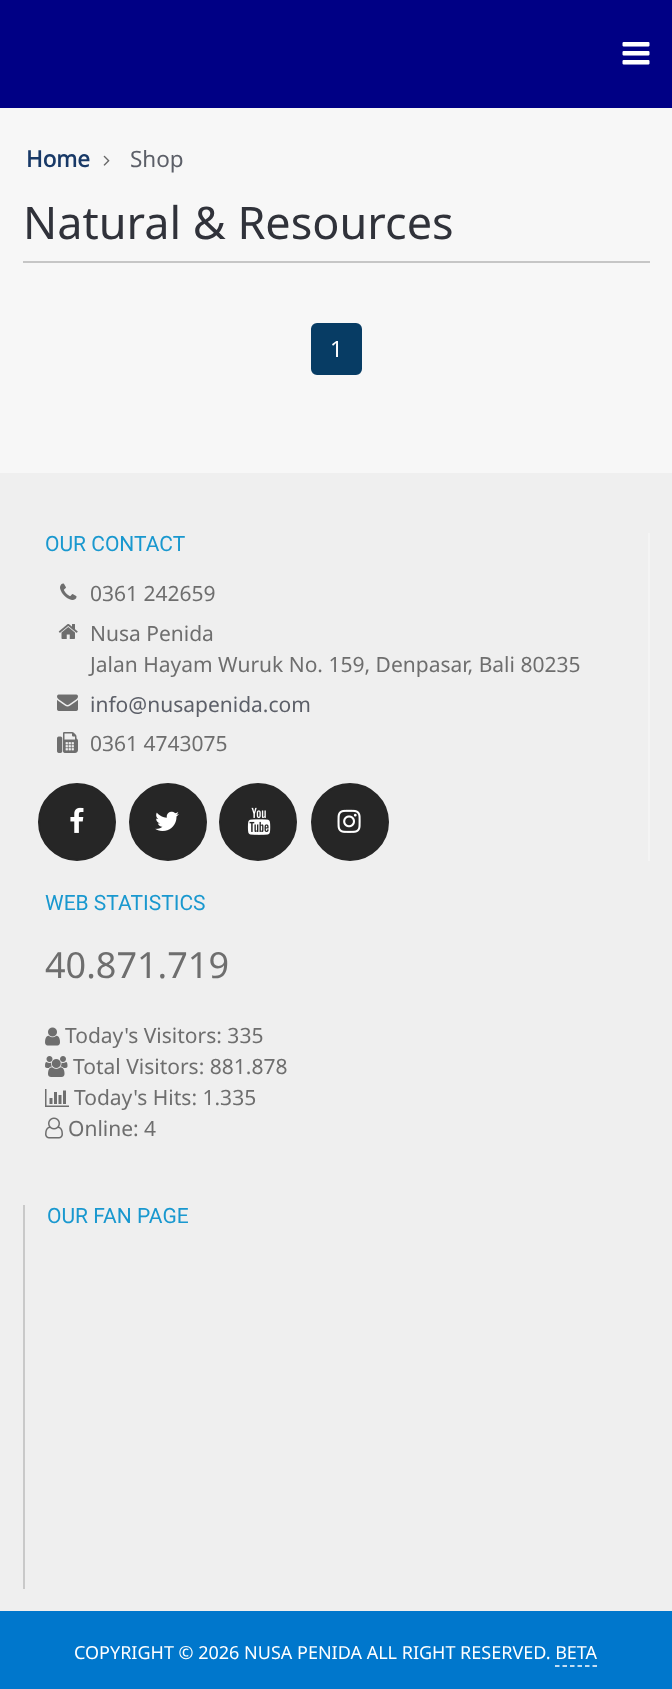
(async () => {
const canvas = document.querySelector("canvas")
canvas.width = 672
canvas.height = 1689
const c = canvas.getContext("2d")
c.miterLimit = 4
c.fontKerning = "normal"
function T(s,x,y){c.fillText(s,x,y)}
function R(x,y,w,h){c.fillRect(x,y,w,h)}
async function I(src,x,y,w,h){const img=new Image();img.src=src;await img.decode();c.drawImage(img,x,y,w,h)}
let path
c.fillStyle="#f7f7f7"
R(0,0,672,1689)
c.fillStyle="#000085"
R(0,0,672,108)
await I("1.png",622,42,28,23)
c.fillStyle="#c6c6c6"
R(23,261,627,2)
c.font="bold 22.5px Noto Sans"
c.fillStyle="#183967"
T("Home",26,167)
await I("2.png",103,155,7,11)
c.font="22.5px Noto Sans"
c.fillStyle="#5c5f68"
T("Shop",130,167)
c.font="45px Noto Sans"
c.fillStyle="#30323a"
T("Natural & Resources",23,239)
c.fillStyle="#073c64"
c.beginPath()
c.roundRect(312,324,49,50,5)
c.fill()
c.strokeStyle="#073c64"
c.lineWidth=2
c.stroke()
c.font="22.5px Noto Sans"
c.fillStyle="#fff"
T("1",330,357)
c.fillStyle="#efefef"
R(0,473,672,1138)
c.fillStyle="#f4f4f4"
R(648,533,2,328)
c.font="21px Roboto"
c.fillStyle="#1998cf"
T("OUR CONTACT",45,551)
await I("3.png",60,583,17,17)
c.font="21px Noto Sans"
c.fillStyle="#6e6e6e"
T("0361 242659",90,601)
await I("4.png",58,624,20,15)
T("Nusa Penida",90,641)
T("Jalan Hayam Wuruk No. 159, Denpasar, Bali 80235",90,672)
await I("5.png",57,694,21,17)
c.fillStyle="#5c5f68"
T("info@nusapenida.com",90,712)
await I("6.png",57,732,21,21)
c.fillStyle="#6e6e6e"
T("0361 4743075",90,751)
c.fillStyle="#262626"
c.beginPath()
c.arc(77,822,38,0,7)
c.fill()
c.strokeStyle="#262626"
c.stroke()
await I("7.png",70,807,14,26)
c.beginPath()
c.arc(168,822,38,0,7)
c.fill()
c.stroke()
await I("8.png",155,811,24,20)
c.beginPath()
c.arc(258,822,38,0,7)
c.fill()
c.stroke()
await I("9.png",247,807,24,28)
c.beginPath()
c.arc(350,822,38,0,7)
c.fill()
c.stroke()
await I("10.png",337,809,24,24)
c.font="21px Roboto"
c.fillStyle="#1998cf"
T("WEB STATISTICS",45,910)
c.font="36px Noto Sans"
c.fillStyle="#6e6e6e"
T("40.871.719",45,978)
await I("11.png",45,1027,15,19)
c.font="21px Noto Sans"
T("Today's Visitors: 335",65,1043)
await I("12.png",45,1056,23,21)
T("Total Visitors: 881.878",73,1074)
await I("13.png",45,1089,24,18)
T("Today's Hits: 1.335",74,1105)
await I("14.png",45,1117,18,22)
T("Online: 4",68,1136)
c.fillStyle="#c9c9c9"
R(23,1205,2,384)
c.font="21px Roboto"
c.fillStyle="#1998cf"
T("OUR FAN PAGE",47,1223)
c.fillStyle="#07c"
R(0,1611,672,78)
c.font="18px Noto Sans"
c.fillStyle="#fff"
T("COPYRIGHT © 2026 NUSA PENIDA ALL RIGHT RESERVED. BETA",74,1659)
path = new Path2D("M555 1666h42")
c.strokeStyle="#fff"
c.lineWidth=1.5
c.setLineDash([4.5,3])
c.stroke(path)
})()
